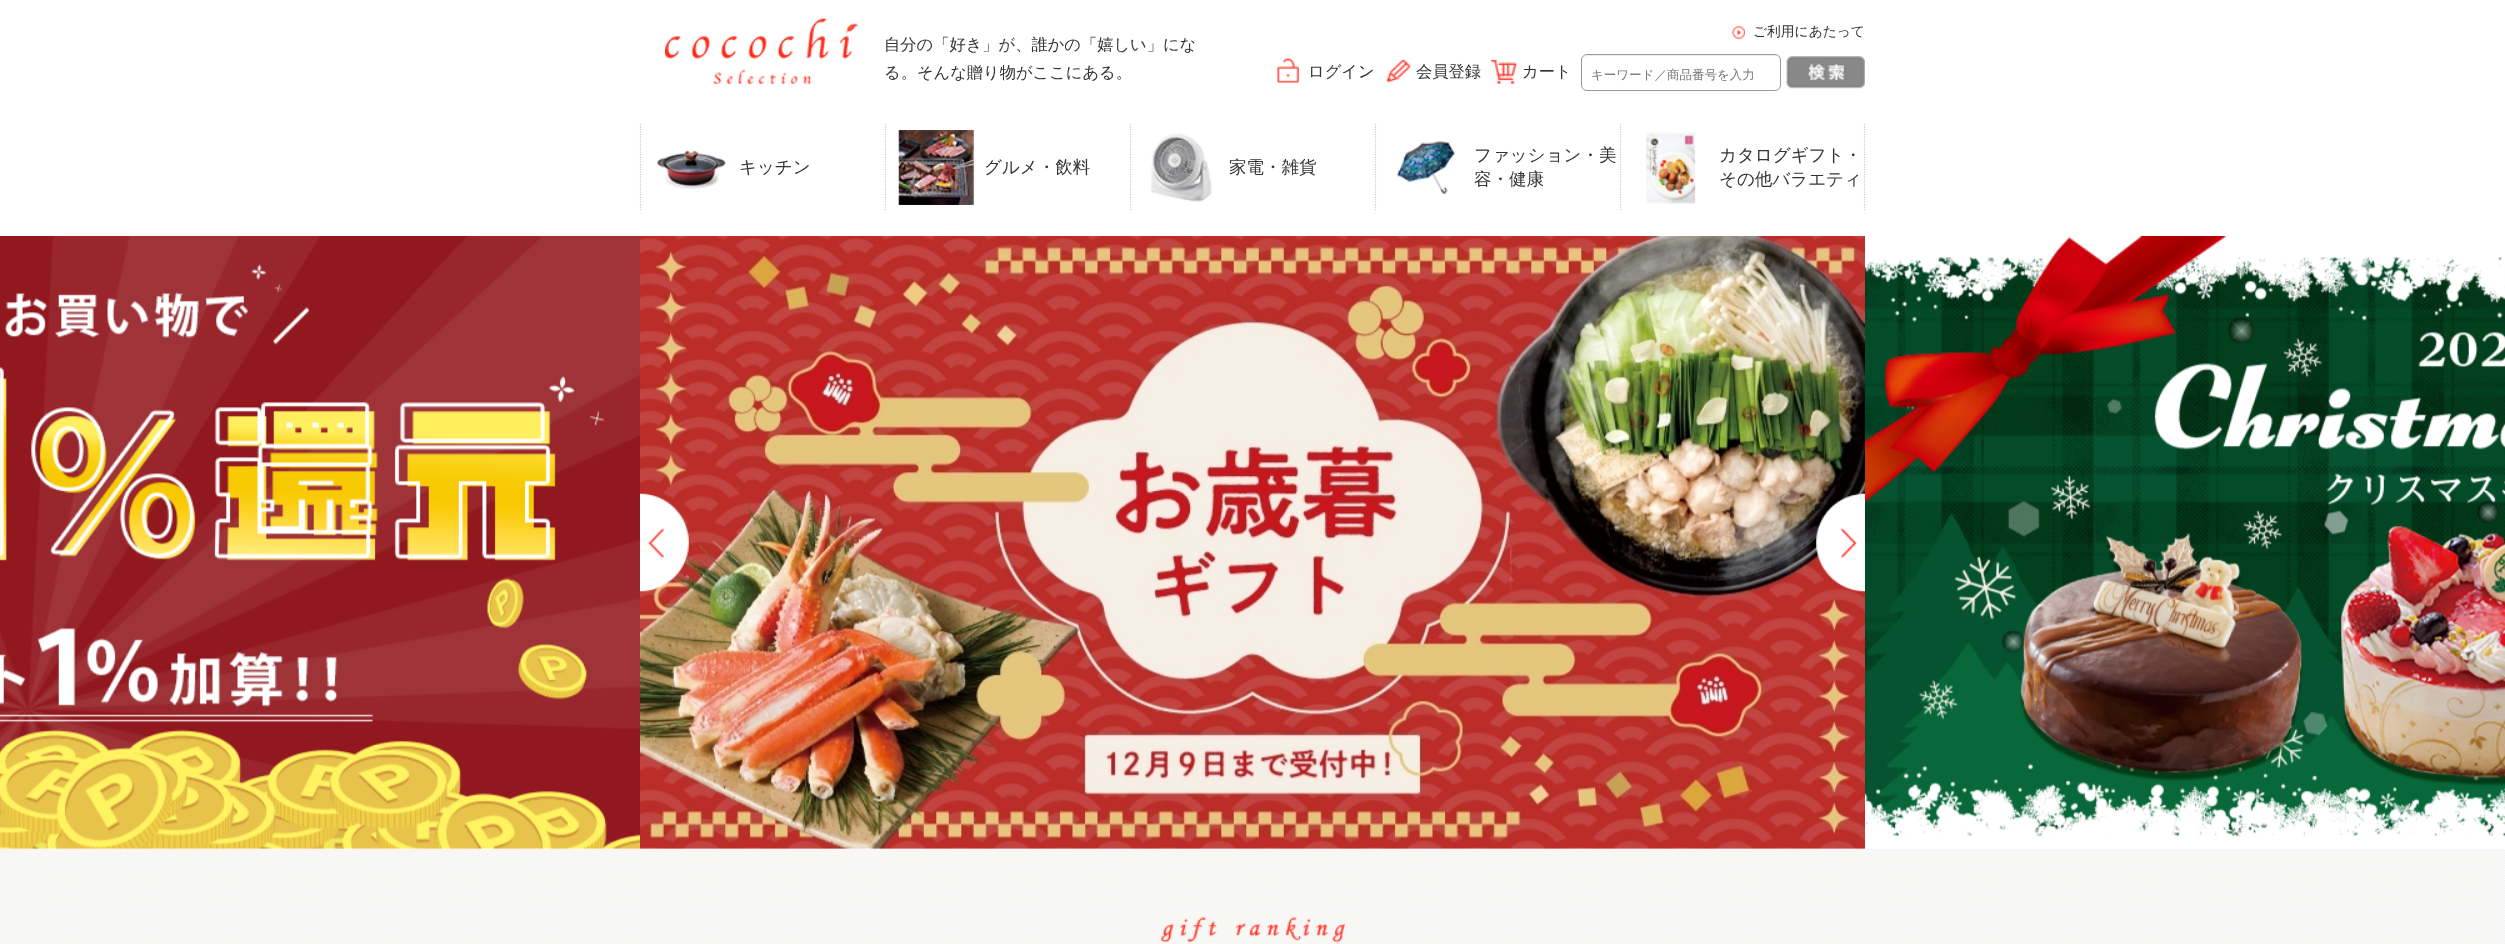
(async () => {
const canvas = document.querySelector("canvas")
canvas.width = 2505
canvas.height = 944
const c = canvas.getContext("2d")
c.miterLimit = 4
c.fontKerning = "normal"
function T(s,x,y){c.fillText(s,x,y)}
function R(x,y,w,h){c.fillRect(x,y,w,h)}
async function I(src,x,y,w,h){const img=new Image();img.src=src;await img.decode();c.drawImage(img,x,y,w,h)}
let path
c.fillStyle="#fff"
R(0,0,2505,944)
await I("1.png",665,18,194,66)
c.font="500 16.25px WenQuanYi Zen Hei"
c.fillStyle="#333"
T("自分の「好き」が、誰かの「嬉しい」にな",884,50)
T("る。そんな贈り物がここにある。",884,78)
await I("2.png",1732,26,13,13)
c.font="500 13.75px WenQuanYi Zen Hei"
T("ご利用にあたって",1753,36)
await I("3.png",1277,58,22,25)
c.font="500 16.25px WenQuanYi Zen Hei"
T("ログイン",1308,77)
await I("4.png",1386,59,25,24)
T("会員登録",1416,77)
await I("5.png",1491,59,26,25)
T("カート",1522,77)
c.fillStyle="#ececec"
path = new Path2D("M1588 56h187c3 0 5 2 5 5v-1c0-3-2-5-5-5h-187c-2 0-4 1-4 3c1-1 2-2 4-2z")
c.fill(path)
c.beginPath()
c.roundRect(1581.5,54.5,199,36,5.5)
c.strokeStyle="#999"
c.stroke()
c.font="500 12.5px WenQuanYi Zen Hei"
c.fillStyle="#757575"
T("キーワード／商品番号を入力",1591,79)
await I("6.png",1786,56,79,33)
path = new Path2D("M640.5 124v87")
c.strokeStyle="#ccc"
c.lineWidth=1.2
c.setLineDash([1.25,1.25])
c.stroke(path)
await I("7.png",656,150,70,39)
c.font="500 17.5px WenQuanYi Zen Hei"
c.fillStyle="#333"
T("キッチン",739,173)
path = new Path2D("M885.5 124v87")
c.stroke(path)
await I("8.png",898,130,76,75)
T("グルメ・飲料",984,173)
path = new Path2D("M1130.5 124v87")
c.stroke(path)
await I("9.png",1151,133,61,69)
T("家電・雑貨",1229,173)
path = new Path2D("M1375.5 124v87")
c.stroke(path)
await I("10.png",1397,141,59,53)
T("ファッション・美",1474,161)
T("容・健康",1474,185)
path = new Path2D("M1864.5 124v87")
c.stroke(path)
path = new Path2D("M1620.5 124v87")
c.stroke(path)
await I("11.png",1646,132,50,72)
T("カタログギフト・",1719,161)
T("その他バラエティ",1719,185)
await I("12.png",0,236,640,613)
await I("13.png",640,236,1225,613)
await I("14.png",1865,236,640,601)
await I("15.png",640,493,49,99)
await I("16.png",1816,493,49,99)
await I("17.png",0,849,2505,95)
await I("18.png",1161,917,184,26)
})()
